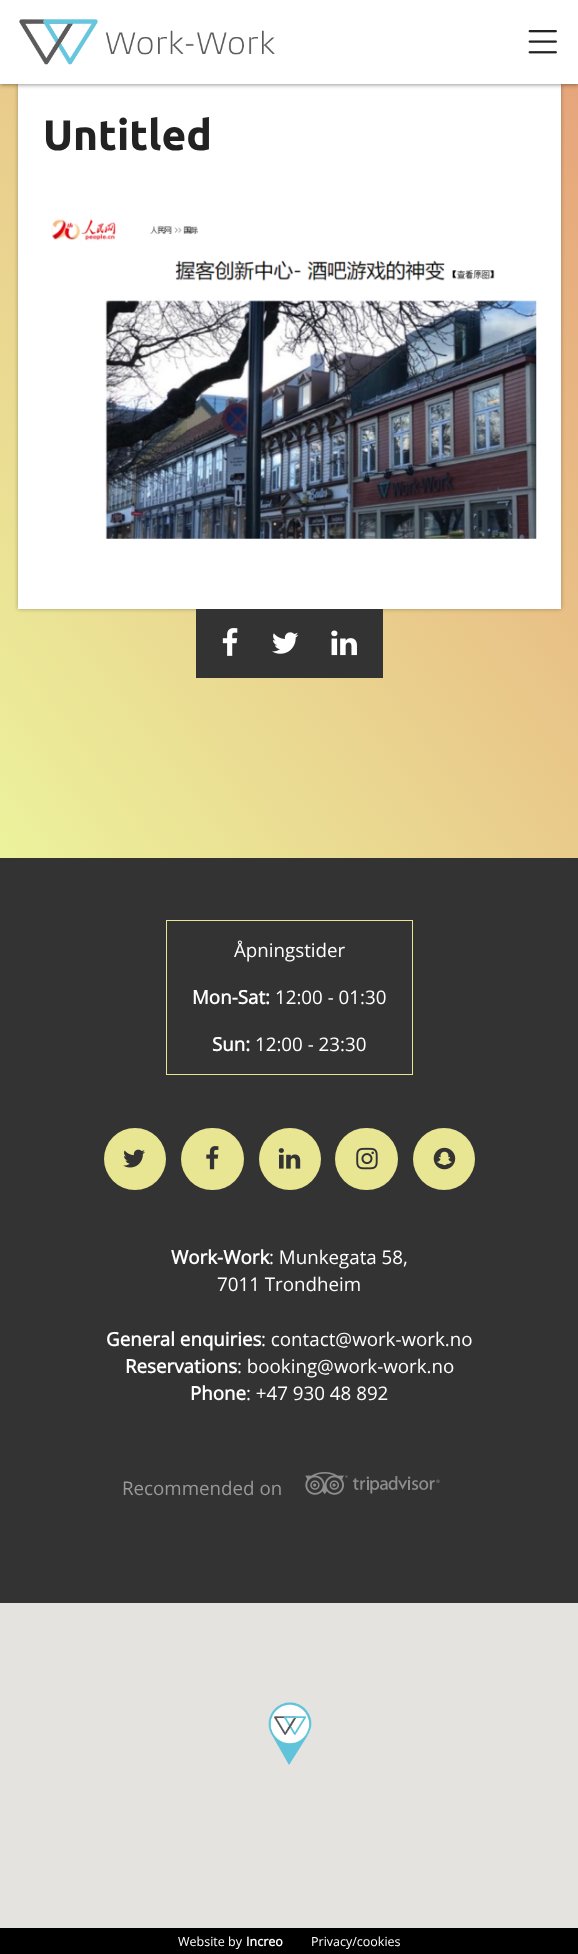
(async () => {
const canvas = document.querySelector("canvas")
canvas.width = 578
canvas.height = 1954
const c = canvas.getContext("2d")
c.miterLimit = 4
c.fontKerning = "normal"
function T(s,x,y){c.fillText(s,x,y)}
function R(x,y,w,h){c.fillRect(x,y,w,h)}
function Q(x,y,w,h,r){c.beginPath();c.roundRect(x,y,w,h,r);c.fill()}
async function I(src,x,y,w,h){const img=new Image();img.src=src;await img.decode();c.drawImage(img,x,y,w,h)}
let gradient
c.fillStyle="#fff"
R(0,0,578,1954)
gradient = c.createLinearGradient(-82,748,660,193)
gradient.addColorStop(0,"#ecf29c")
gradient.addColorStop(1,"#e6a57b")
c.fillStyle = gradient
R(0,84,578,774)
c.fillStyle="#0000004d"
c.filter="blur(2px)"
c.beginPath()
c.rect(18,84,543,525)
c.fill()
c.filter="none"
c.fillStyle="#fff"
R(18,84,543,525)
c.fillStyle="#00000066"
c.filter="blur(2px)"
c.beginPath()
c.rect(0,1,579,84)
c.fill()
c.filter="none"
c.fillStyle="#fff"
R(0,0,578,84)
await I("1.png",19,19,256,46)
await I("2.png",528,30,29,24)
c.font="bold 42.5px Ubuntu"
c.fillStyle="#222"
T("Untitled",43,150)
await I("3.png",51,217,486,322)
c.fillStyle="#333"
R(196,609,187,69)
await I("4.png",222,628,16,28)
await I("5.png",272,632,27,22)
await I("6.png",331,630,26,26)
R(0,858,578,745)
c.strokeStyle="#e8e593"
c.strokeRect(166.5,920.5,246,154)
c.font="18.75px Open Sans"
c.fillStyle="#fff"
T("Åpningstider",234,957)
c.font="bold 18.75px Open Sans"
T("Mon-Sat:",192,1004)
c.font="18.75px Open Sans"
T("12:00 - 01:30",275,1004)
c.font="bold 18.75px Open Sans"
T("Sun:",212,1051)
c.font="18.75px Open Sans"
T("12:00 - 23:30",255,1051)
c.fillStyle="#e8e593"
c.beginPath()
c.arc(135,1159,31,0,7)
c.fill()
await I("7.png",123,1149,22,19)
Q(181,1128,63,62,31)
await I("8.png",206,1146,13,24)
c.beginPath()
c.arc(290,1159,31,0,7)
c.fill()
await I("9.png",278,1148,23,21)
Q(335,1128,63,62,31)
await I("10.png",356,1147,22,23)
c.beginPath()
c.arc(444,1159,31,0,7)
c.fill()
await I("11.png",433,1147,23,23)
c.font="bold 18.75px Open Sans"
c.fillStyle="#fff"
T("Work-Work",171,1264)
c.font="18.75px Open Sans"
T(": Munkegata 58,",269,1264)
T("7011 Trondheim",217,1291)
c.font="bold 18.75px Open Sans"
T("General enquiries",106,1346)
c.font="18.75px Open Sans"
T(": contact@work-work.no",261,1346)
c.font="bold 18.75px Open Sans"
T("Reservations",125,1373)
c.font="18.75px Open Sans"
T(": booking@work-work.no",237,1373)
c.font="bold 18.75px Open Sans"
T("Phone",190,1400)
c.font="18.75px Open Sans"
T(": +47 930 48 892",246,1400)
c.fillStyle="#999"
T("Recommended on",122,1495)
await I("12.png",305,1472,135,23)
c.fillStyle="#e5e3df"
R(0,1603,578,325)
await I("13.png",268,1702,44,63)
c.fillStyle="#000"
R(0,1928,578,26)
c.font="12.5px Open Sans"
c.fillStyle="#fff"
T("Website by",178,1946)
c.font="bold 12.5px Open Sans"
T("Increo",246,1946)
c.font="12.5px Open Sans"
T("Privacy/cookies",311,1946)
})()
